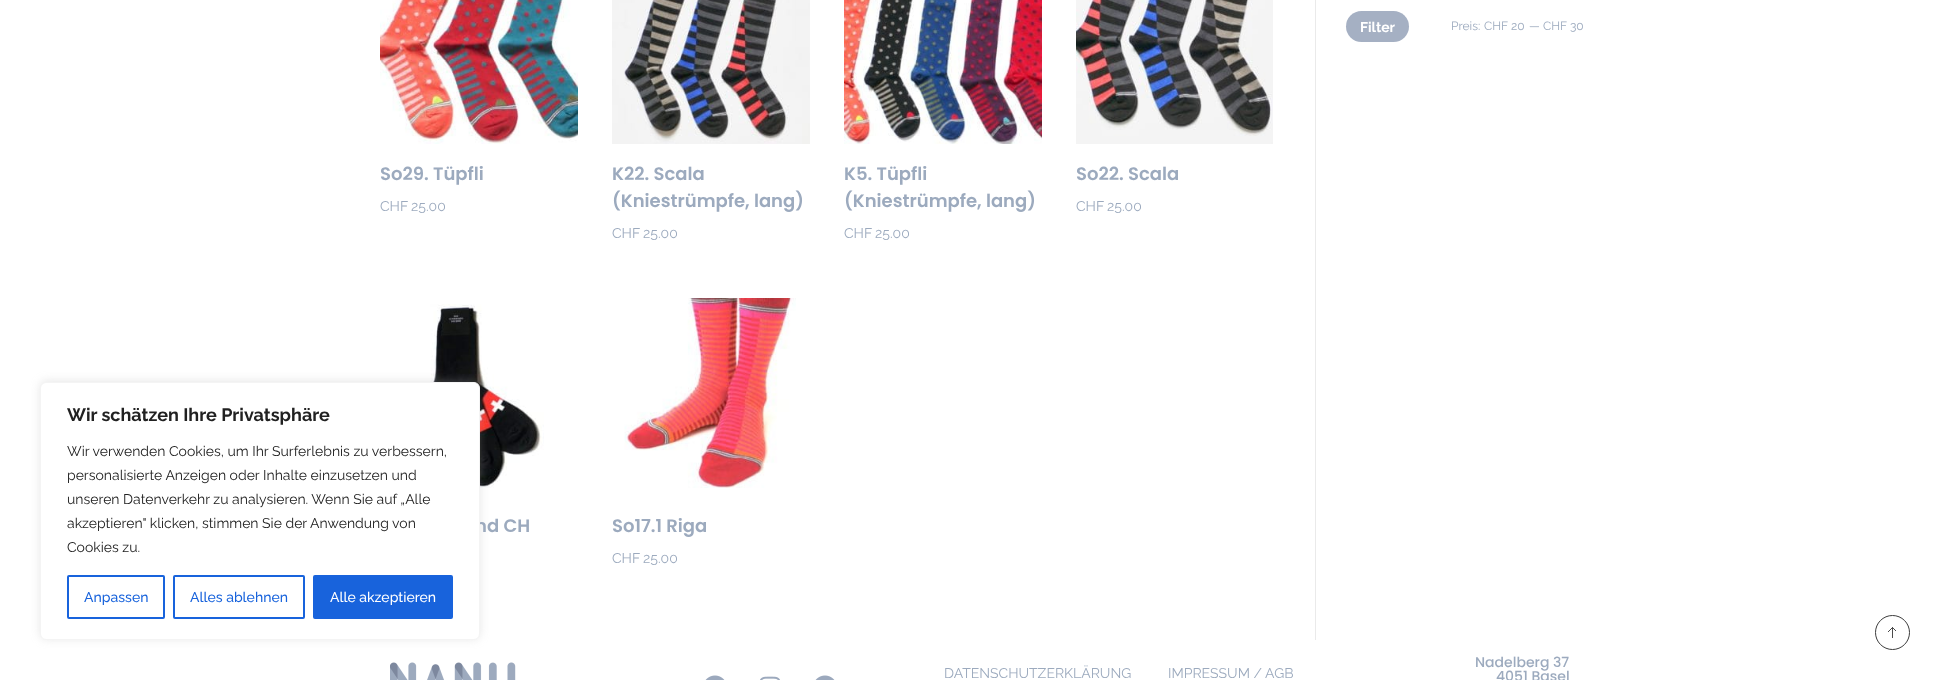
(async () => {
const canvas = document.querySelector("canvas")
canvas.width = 1960
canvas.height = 680
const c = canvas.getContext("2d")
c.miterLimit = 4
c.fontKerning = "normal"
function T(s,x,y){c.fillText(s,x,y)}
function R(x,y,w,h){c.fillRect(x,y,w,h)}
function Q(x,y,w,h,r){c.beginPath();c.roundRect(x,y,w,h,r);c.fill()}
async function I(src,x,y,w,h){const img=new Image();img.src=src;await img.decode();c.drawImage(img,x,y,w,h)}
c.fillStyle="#fff"
R(0,0,1960,680)
await I("5.png",420,304,124,184)
c.fillStyle="#acabab4d"
c.filter="blur(5px)"
c.beginPath()
c.roundRect(40,381,440,258,6)
c.fill()
c.filter="none"
c.font="600 18px Poppins"
c.fillStyle="#9caabe"
T("nd CH",475,532)
c.fillStyle="#fff"
c.beginPath()
c.roundRect(40.5,382.5,439,257,5.5)
c.fill()
c.strokeStyle="#f4f4f4"
c.stroke()
c.font="bold 18px Raleway"
c.fillStyle="#212121"
T("Wir schätzen Ihre Privatsphäre",67,421)
c.font="14px Raleway"
T("Wir verwenden Cookies, um Ihr Surferlebnis zu verbessern,",67,456)
T("personalisierte Anzeigen oder Inhalte einzusetzen und",67,480)
T("unseren Datenverkehr zu analysieren. Wenn Sie auf „Alle",67,504)
T("akzeptieren\" klicken, stimmen Sie der Anwendung von",67,528)
T("Cookies zu.",67,552)
c.beginPath()
c.roundRect(68,576,96,42,1)
c.strokeStyle="#1863dc"
c.lineWidth=2
c.stroke()
c.font="500 14px Raleway"
c.fillStyle="#1863dc"
T("Anpassen",84,602)
c.beginPath()
c.roundRect(174,576,130,42,1)
c.stroke()
T("Alles ablehnen",190,602)
c.beginPath()
c.roundRect(314,576,138,42,1)
c.fill()
c.stroke()
c.fillStyle="#fff"
T("Alle akzeptieren",330,602)
c.fillStyle="#eaeaea"
R(1315,0,1,640)
c.fillStyle="#a5b0c3"
Q(1346,11,63,31,15.5)
c.font="bold 14px Raleway"
c.fillStyle="#fff"
T("Filter",1360,32)
c.font="12px Raleway"
c.fillStyle="#9caabe"
T("Preis:",1451,30)
T("CHF 20",1484,30)
T("—",1529,30)
T("CHF 30",1543,30)
await I("1.png",380,0,198,144)
c.font="600 18px Poppins"
T("So29. Tüpfli",380,180)
c.font="14px Raleway"
T("CHF",380,211)
T("25.00",411,211)
await I("2.png",612,0,198,144)
c.font="600 18px Poppins"
T("K22. Scala",612,180)
T("(Kniestrümpfe, lang)",612,207)
c.font="14px Raleway"
T("CHF",612,238)
T("25.00",643,238)
await I("3.png",844,0,198,144)
c.font="600 18px Poppins"
T("K5. Tüpfli",844,180)
T("(Kniestrümpfe, lang)",844,207)
c.font="14px Raleway"
T("CHF",844,238)
T("25.00",875,238)
await I("4.png",1076,0,197,144)
c.font="600 18px Poppins"
T("So22. Scala",1076,180)
c.font="14px Raleway"
T("CHF",1076,211)
T("25.00",1107,211)
await I("6.png",624,298,172,190)
c.font="600 18px Poppins"
T("So17.1 Riga",612,532)
c.font="14px Raleway"
T("CHF",612,563)
T("25.00",643,563)
await I("7.png",390,662,126,18)
await I("8.png",705,675,20,5)
await I("9.png",760,676,20,4)
await I("8.png",815,675,20,5)
T("DATENSCHUTZERKLÄRUNG",944,678)
T("IMPRESSUM / AGB",1168,678)
c.font="500 14px Poppins"
T("Nadelberg 37",1475,667)
T("4051 Basel",1496,681)
c.beginPath()
c.arc(1892.5,632.5,17,0,7)
c.strokeStyle="#3d3d3d"
c.lineWidth=1
c.stroke()
await I("10.png",1888,627,8,11)
})()
